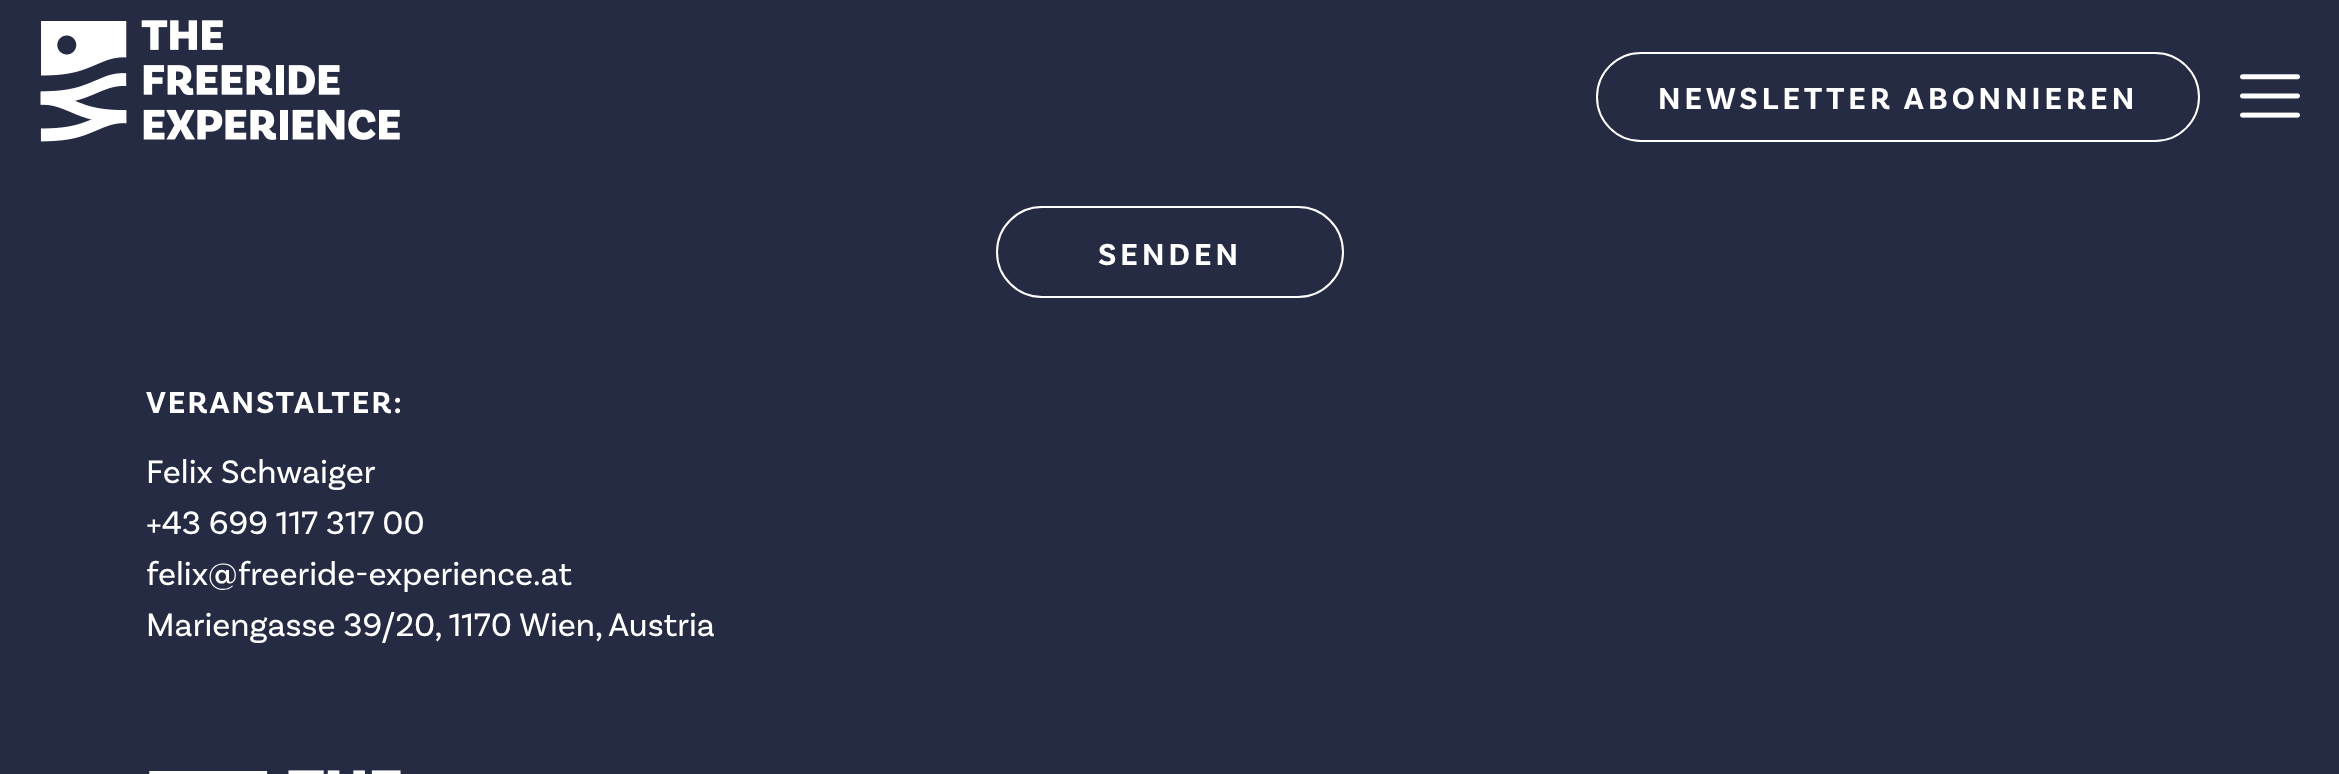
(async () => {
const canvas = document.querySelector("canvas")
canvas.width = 2339
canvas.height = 774
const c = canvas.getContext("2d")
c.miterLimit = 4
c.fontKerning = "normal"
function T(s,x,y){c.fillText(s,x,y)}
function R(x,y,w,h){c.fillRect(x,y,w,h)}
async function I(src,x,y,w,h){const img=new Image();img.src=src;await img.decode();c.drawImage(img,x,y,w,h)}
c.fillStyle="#262b44"
R(0,0,2339,774)
await I("1.png",40,20,360,122)
c.beginPath()
c.roundRect(1597,53,602,88,44)
c.strokeStyle="#fff"
c.lineWidth=2
c.stroke()
c.letterSpacing="4px"
c.font="bold 32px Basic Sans"
c.fillStyle="#fff"
T("NEWSLETTER ABONNIEREN",1658,109)
await I("2.png",2240,74,60,44)
c.beginPath()
c.roundRect(997,207,346,90,45)
c.stroke()
T("SENDEN",1098,265)
c.letterSpacing="2px"
T("VERANSTALTER:",146,413)
c.letterSpacing="0px"
c.font="34px Basic Sans"
T("Felix Schwaiger",146,483)
T("+43 699 117 317 00",146,534)
T("felix@freeride-experience.at",146,585)
T("Mariengasse 39/20, 1170 Wien, Austria",146,636)
await I("3.png",149,770,252,4)
})()
